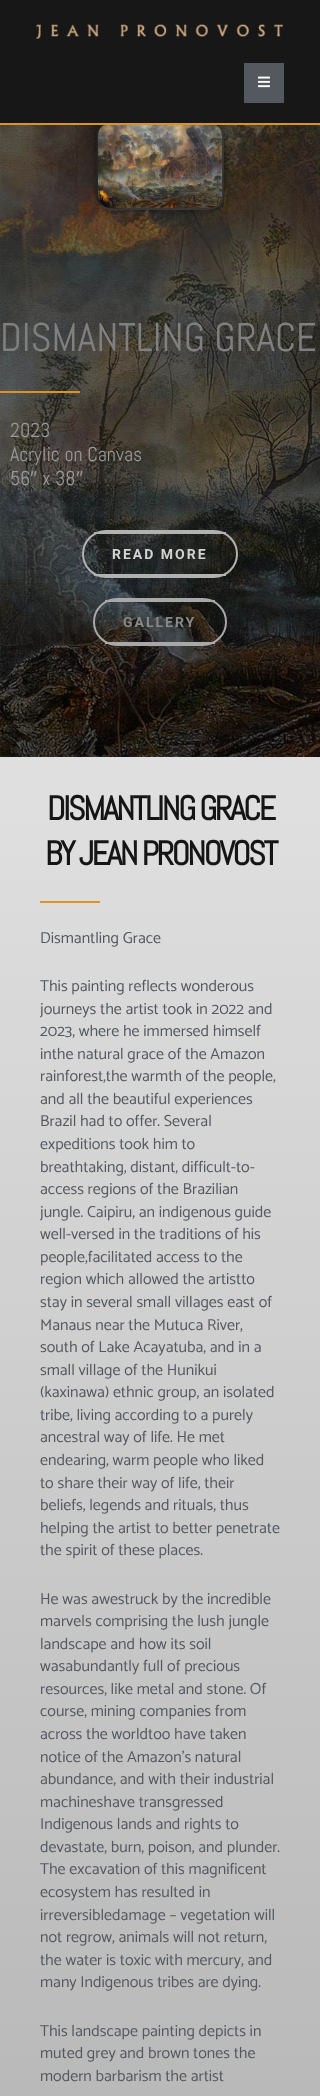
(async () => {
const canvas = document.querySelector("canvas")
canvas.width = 320
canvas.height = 2096
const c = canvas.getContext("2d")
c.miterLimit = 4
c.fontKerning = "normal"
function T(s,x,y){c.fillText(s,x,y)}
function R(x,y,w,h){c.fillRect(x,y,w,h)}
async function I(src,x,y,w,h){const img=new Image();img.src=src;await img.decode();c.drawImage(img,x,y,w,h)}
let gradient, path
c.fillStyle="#fff"
R(0,0,320,2096)
await I("3.png",0,125,320,632)
c.fillStyle="#00000080"
c.filter="blur(5px)"
c.beginPath()
c.roundRect(96,121,128,89,15)
c.fill()
c.filter="none"
path = new Path2D("M219 126c5 5.5 4 13 4 20l-.5 51.5c-2.5 14.5-19.5 11.5-30 11.5h-65c-8 0-20 2.5-26.5-4")
c.strokeStyle="#383838"
c.lineWidth=2
c.stroke(path)
path = new Path2D("M101 205c-5-5.5-4-13-4-20l.5-51.5c2.5-14.5 19.5-11.5 30-11.5h65c8 0 20-2.5 26.5 4")
c.strokeStyle="#252525"
c.stroke(path)
c.fillStyle="#171717"
R(0,0,320,123)
c.fillStyle="#db9423"
R(0,123,320,2)
await I("1.png",36,24,248,15)
c.fillStyle="#54595f"
R(244,63,40,40)
await I("2.png",258,76,12,12)
await I("4.png",98,125,124,83)
c.font="40px Abel"
c.fillStyle="#808080"
T("DISMANTLING GRACE",0,351)
c.fillStyle="#db9423"
R(0,391,80,2)
c.font="20px Abel"
c.fillStyle="#999"
T("2023",10,437)
T("Acrylic on Canvas",10,461)
T("56",10,485)
c.font="20px Liberation Sans"
T("″",30,485)
c.font="20px Abel"
T("x 38",42,485)
c.font="20px Liberation Sans"
T("″",76,485)
c.beginPath()
c.roundRect(83,531,154,46,23)
c.strokeStyle="#b2b2b2"
c.stroke()
c.fillStyle="#b2b2b2"
R(94,532,132,2)
R(94,574,132,2)
c.letterSpacing="2px"
c.font="bold 14px Roboto"
c.fillStyle="#d3d3d3"
T("READ MORE",112,559)
c.beginPath()
c.roundRect(94,599,132,46,23)
c.strokeStyle="#a8a8a8"
c.stroke()
c.fillStyle="#a8a8a8"
R(105,600,110,2)
R(105,642,110,2)
c.fillStyle="#898989"
T("GALLERY",123,627)
gradient = c.createLinearGradient(160,757,160,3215)
gradient.addColorStop(0,"#e0e0e0")
gradient.addColorStop(.6,"#b5b5b5")
c.fillStyle = gradient
R(0,757,320,1339)
c.letterSpacing="-2.5px"
c.font="bold 34px Abel"
c.fillStyle="#151515"
T("DISMANTLING GRACE",47,820)
T("BY JEAN PRONOVOST",45,865)
c.fillStyle="#db9423"
R(40,901,60,2)
c.letterSpacing="0px"
c.font="16px Catamaran"
c.fillStyle="#54595f"
T("Dismantling Grace",40,943)
T("This painting reflects wonderous",40,991)
T("journeys the artist took in 2022 and",40,1014)
T("2023, where he immersed himself",40,1036)
T("inthe natural grace of the Amazon",40,1059)
T("rainforest,the warmth of the people,",40,1081)
T("and all the beautiful experiences",40,1104)
T("Brazil had to offer. Several",40,1126)
T("expeditions took him to",40,1149)
T("breathtaking, distant, difficult-to-",40,1172)
T("access regions of the Brazilian",40,1194)
T("jungle. Caipiru, an indigenous guide",40,1217)
T("well-versed in the traditions of his",40,1239)
T("people,facilitated access to the",40,1262)
T("region which allowed the artistto",40,1284)
T("stay in several small villages east of",40,1307)
T("Manaus near the Mutuca River,",40,1330)
T("south of Lake Acayatuba, and in a",40,1352)
T("small village of the Hunikui",40,1375)
T("(kaxinawa) ethnic group, an isolated",40,1397)
T("tribe, living according to a purely",40,1420)
T("ancestral way of life. He met",40,1442)
T("endearing, warm people who liked",40,1465)
T("to share their way of life, their",40,1488)
T("beliefs, legends and rituals, thus",40,1510)
T("helping the artist to better penetrate",40,1533)
T("the spirit of these places.",40,1555)
T("He was awestruck by the incredible",40,1604)
T("marvels comprising the lush jungle",40,1626)
T("landscape and how its soil",40,1649)
T("wasabundantly full of precious",40,1671)
T("resources, like metal and stone. Of",40,1694)
T("course, mining companies from",40,1716)
T("across the worldtoo have taken",40,1739)
T("notice of the Amazon’s natural",40,1762)
T("abundance, and with their industrial",40,1784)
T("machineshave transgressed",40,1807)
T("Indigenous lands and rights to",40,1829)
T("devastate, burn, poison, and plunder.",40,1852)
T("The excavation of this magnificent",40,1874)
T("ecosystem has resulted in",40,1897)
T("irreversibledamage – vegetation will",40,1920)
T("not regrow, animals will not return,",40,1942)
T("the water is toxic with mercury, and",40,1965)
T("many Indigenous tribes are dying.",40,1987)
T("This landscape painting depicts in",40,2036)
T("muted grey and brown tones the",40,2058)
T("modern barbarism the artist",40,2081)
})()
